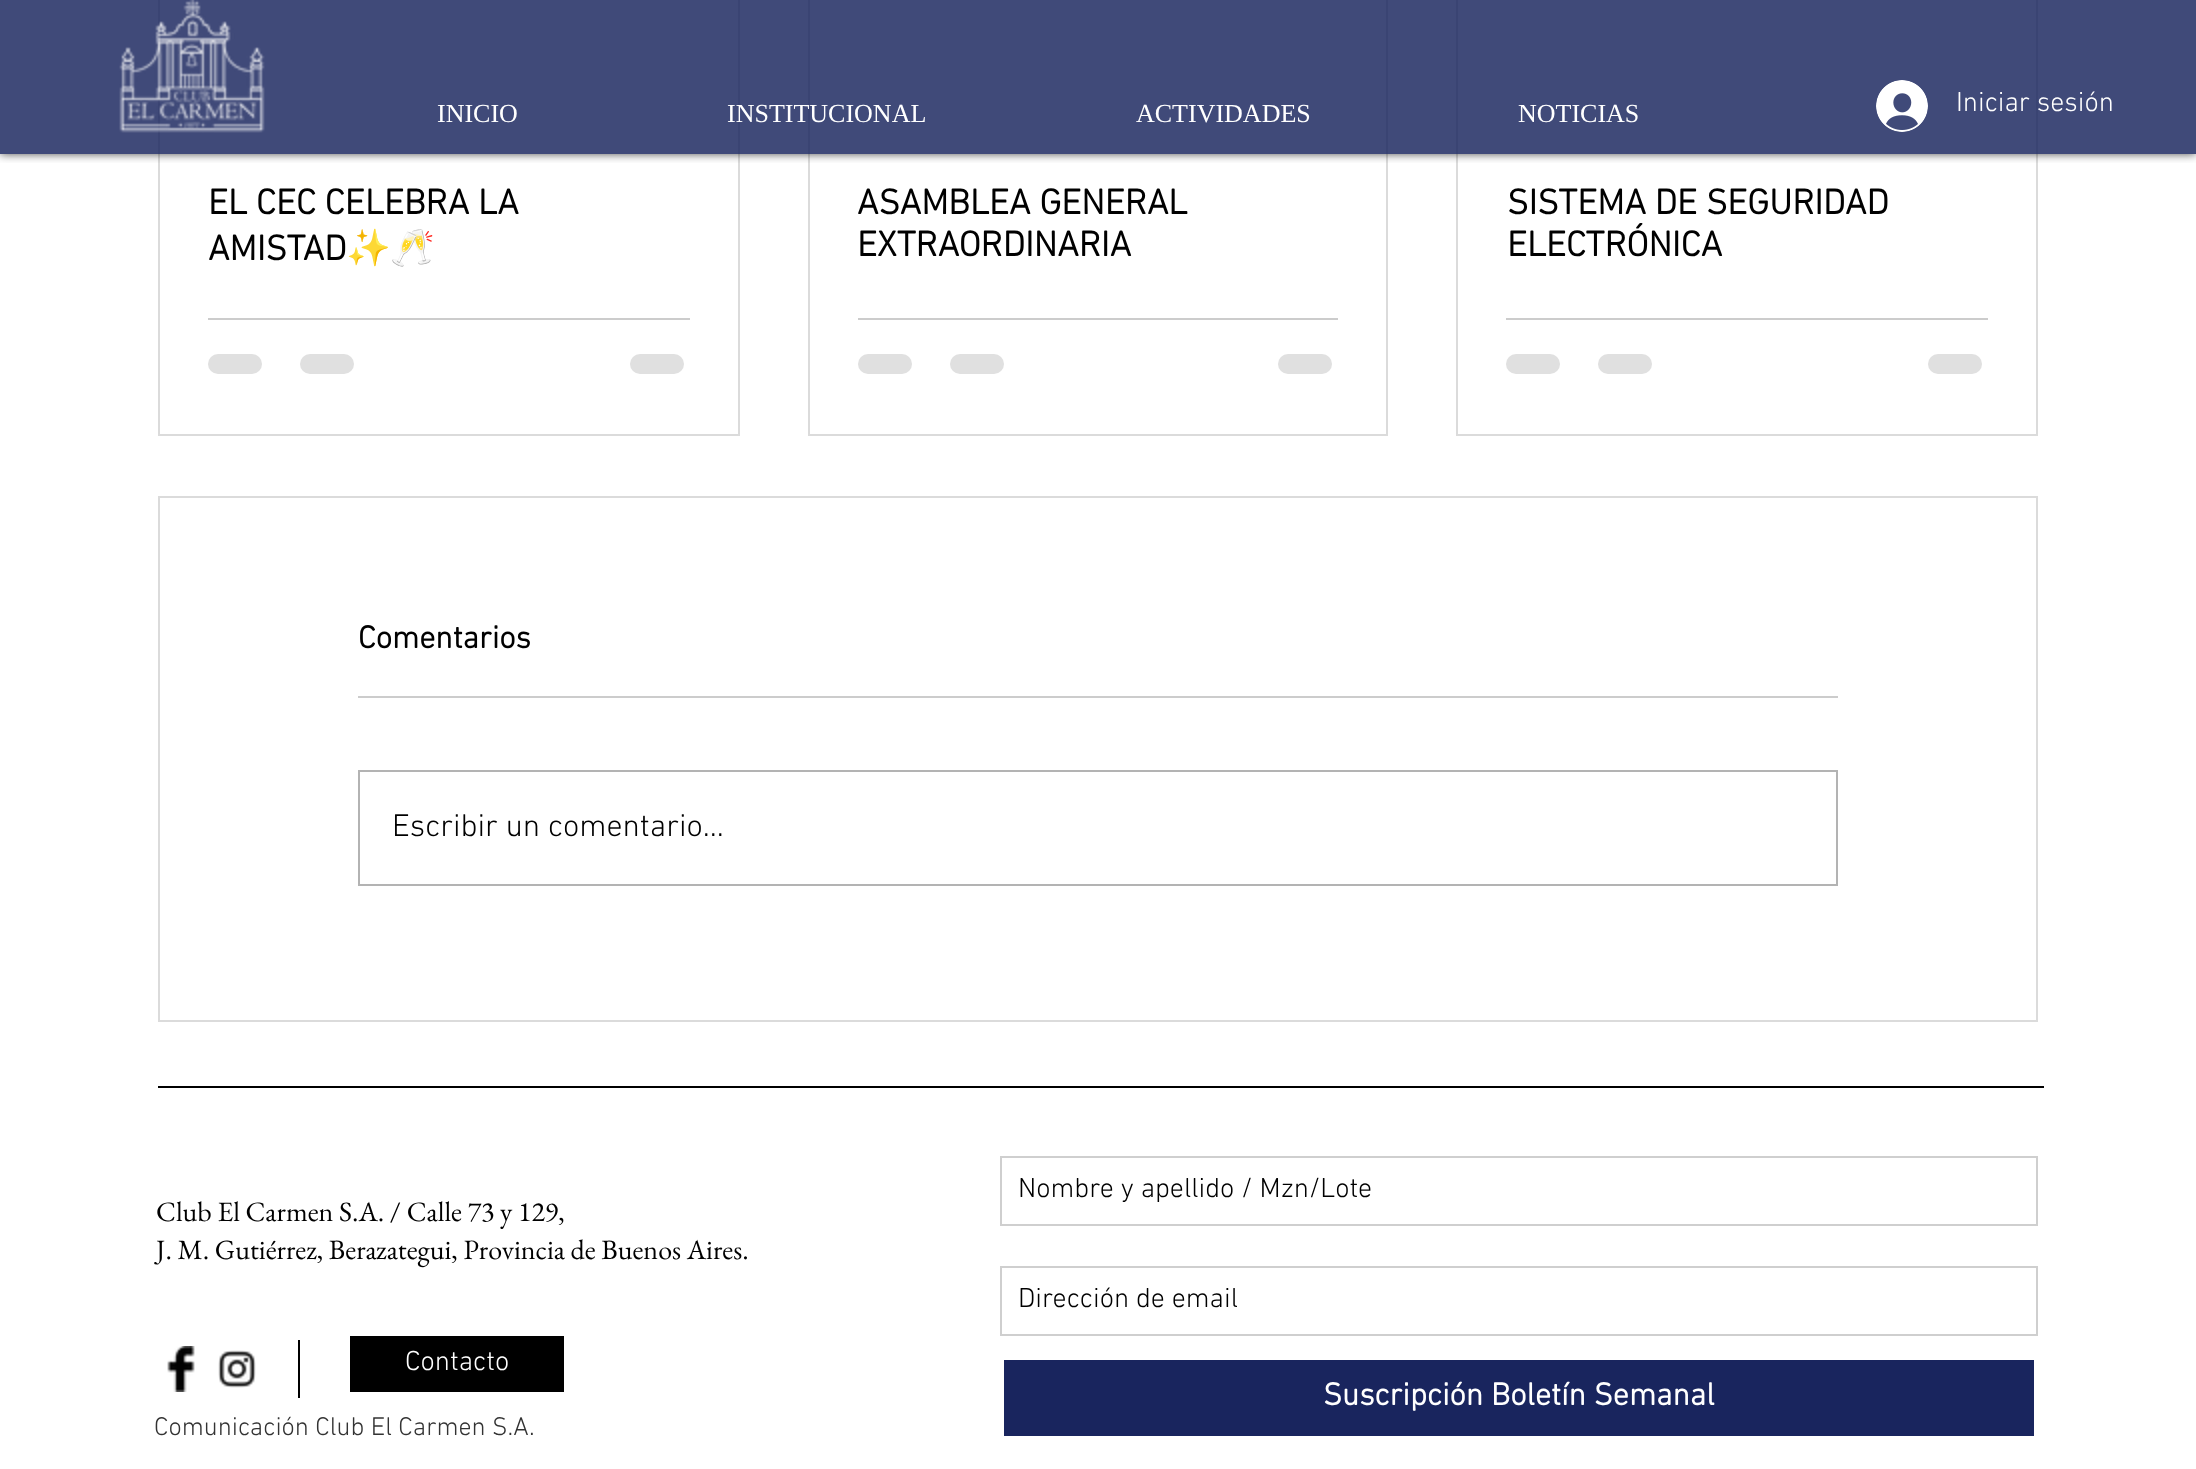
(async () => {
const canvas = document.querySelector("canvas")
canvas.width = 2196
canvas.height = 1469
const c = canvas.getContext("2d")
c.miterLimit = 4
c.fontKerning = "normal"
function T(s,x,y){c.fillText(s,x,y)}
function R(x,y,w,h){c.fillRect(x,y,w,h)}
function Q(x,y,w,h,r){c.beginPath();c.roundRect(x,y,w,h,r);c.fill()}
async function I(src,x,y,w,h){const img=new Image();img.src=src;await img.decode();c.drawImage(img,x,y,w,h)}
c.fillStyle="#fff"
R(0,0,2196,1469)
c.strokeStyle="#dbdbdb"
c.lineWidth=2
c.strokeRect(159,-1,580,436)
c.strokeRect(809,-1,578,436)
c.strokeRect(1457,-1,580,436)
c.save()
c.beginPath()
c.rect(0,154,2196,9)
c.clip()
c.fillStyle="#000000b3"
c.filter="blur(5px)"
c.beginPath()
c.rect(0,0,2196,154)
c.fill()
c.filter="none"
c.restore()
c.fillStyle="#19255ed4"
R(0,0,2196,154)
await I("1.png",119,0,146,133)
c.font="26px Liberation Serif"
c.fillStyle="#fff"
T("INICIO",437,122)
T("INSTITUCIONAL",727,122)
T("ACTIVIDADES",1136,122)
T("NOTICIAS",1518,122)
await I("2.png",1876,80,52,52)
c.font="300 28px 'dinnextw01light'"
T("Iniciar sesión",1956,111)
c.font="bold 36px 'dinnextw01light'"
c.fillStyle="#000"
T("EL CEC CELEBRA LA",208,214)
T("AMISTAD",208,260)
c.font="bold 36px Noto Color Emoji"
T("✨🥂",346,260)
c.fillStyle="#ccc"
R(208,318,482,2)
c.fillStyle="#e0e0e0"
Q(208,354,54,20,10)
Q(300,354,54,20,10)
Q(630,354,54,20,10)
c.font="bold 36px 'dinnextw01light'"
c.fillStyle="#000"
T("ASAMBLEA GENERAL",857,214)
T("EXTRAORDINARIA",857,256)
c.fillStyle="#ccc"
R(858,318,480,2)
c.fillStyle="#e0e0e0"
Q(858,354,54,20,10)
Q(950,354,54,20,10)
Q(1278,354,54,20,10)
c.fillStyle="#000"
T("SISTEMA DE SEGURIDAD",1507,214)
T("ELECTRÓNICA",1507,256)
c.fillStyle="#ccc"
R(1506,318,482,2)
c.fillStyle="#e0e0e0"
Q(1506,354,54,20,10)
Q(1598,354,54,20,10)
Q(1928,354,54,20,10)
c.strokeRect(159,497,1878,524)
c.font="bold 32px 'dinnextw01light'"
c.fillStyle="#000"
T("Comentarios",358,648)
c.fillStyle="#ccc"
R(358,696,1480,2)
c.strokeStyle="#b3b3b3"
c.strokeRect(359,771,1478,114)
c.font="300 32px 'dinnextw01light'"
c.fillStyle="#000"
T("Escribir un comentario...",392,836)
R(158,1086,1886,2)
c.font="28px EB Garamond"
T("Club El Carmen S.A. / Calle 73 y 129,",156,1221)
T("J. M. Gutiérrez, Berazategui, Provincia de Buenos Aires.",156,1259)
c.strokeStyle="#cfcfcf"
c.strokeRect(1001,1157,1036,68)
c.font="300 28px 'dinnextw01light'"
T("Nombre y apellido / Mzn/Lote",1018,1197)
c.strokeRect(1001,1267,1036,68)
T("Dirección de email",1018,1307)
c.fillStyle="#19255e"
R(1004,1360,1030,76)
c.font="bold 32px 'dinnextw01light'"
c.fillStyle="#fff"
T("Suscripción Boletín Semanal",1323,1405)
await I("3.png",167,1346,28,46)
await I("4.png",218,1350,38,38)
c.fillStyle="#000"
R(298,1340,2,58)
R(350,1336,214,56)
c.font="300 28px 'dinnextw01light'"
c.fillStyle="#fff"
T("Contacto",405,1370)
c.font="300 26px 'dinnextw01light'"
c.fillStyle="#333"
T("Comunicación Club El Carmen S.A.",154,1435)
})()
